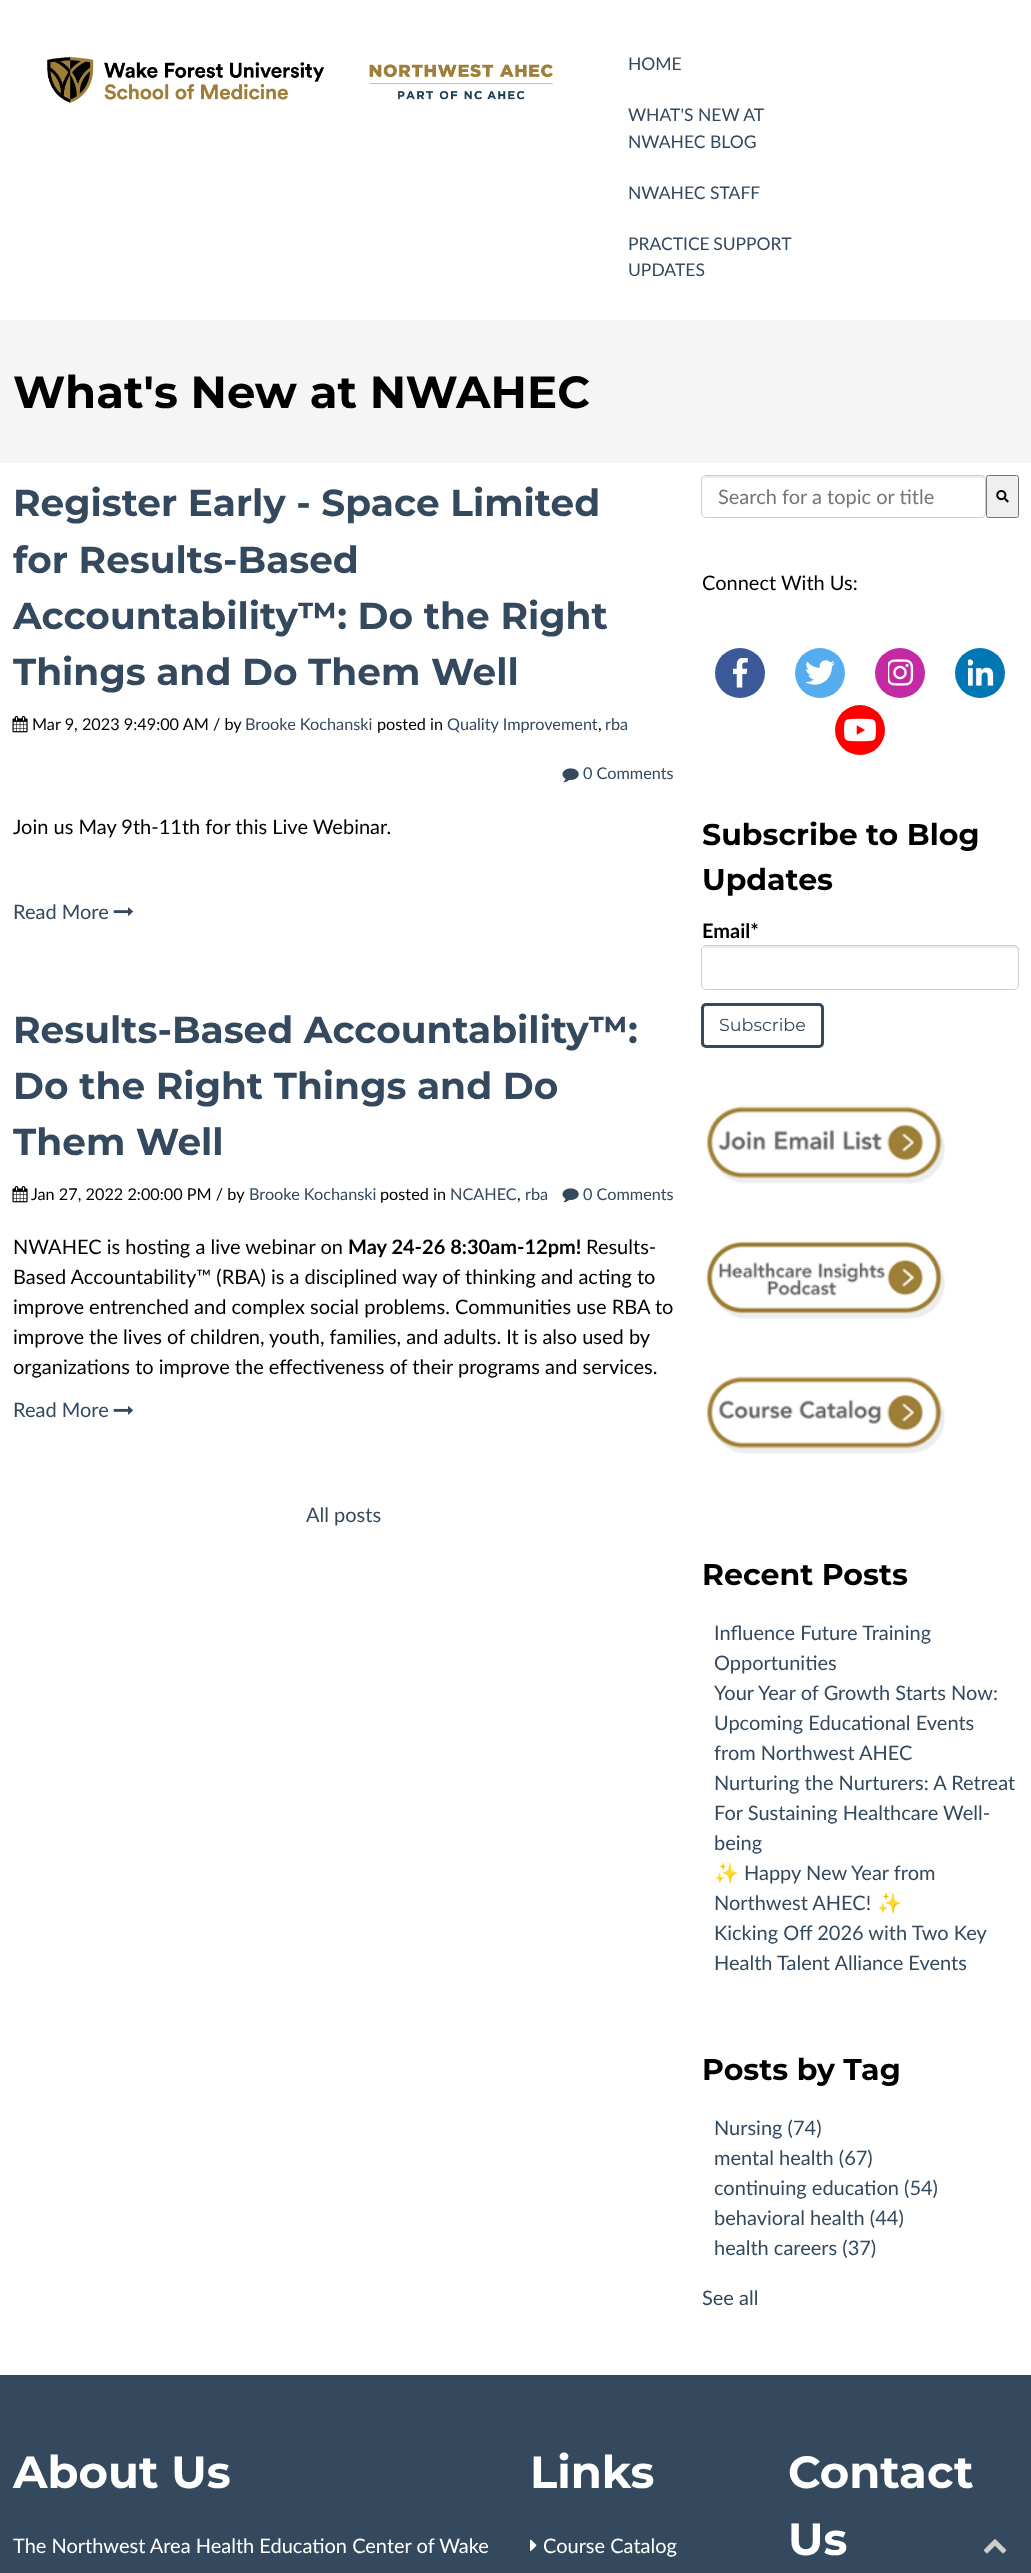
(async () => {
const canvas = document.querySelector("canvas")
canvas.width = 1031
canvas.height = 2573
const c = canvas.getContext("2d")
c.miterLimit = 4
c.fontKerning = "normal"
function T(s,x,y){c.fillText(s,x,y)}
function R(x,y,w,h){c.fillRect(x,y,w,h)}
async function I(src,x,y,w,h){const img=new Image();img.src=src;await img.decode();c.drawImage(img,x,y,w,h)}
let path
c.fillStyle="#fff"
R(0,0,1031,2573)
await I("1.png",47,57,506,46)
c.font="17.5px Lato"
c.fillStyle="#34495e"
T("HOME",628,70)
T("WHAT'S NEW AT",628,121)
T("NWAHEC BLOG",628,148)
T("NWAHEC STAFF",628,199)
c.wordSpacing="-1px"
T("PRACTICE SUPPORT",628,250)
c.wordSpacing="0px"
T("UPDATES",628,276)
c.fillStyle="#f5f5f5"
R(0,320,1031,143)
c.font="bold 45px Montserrat"
c.fillStyle="#000"
T("What's New at NWAHEC",13,408)
c.font="bold 37.5px Montserrat"
c.fillStyle="#34495e"
T("Register Early - Space Limited",13,516)
T("for Results-Based",13,573)
T("Accountability™: Do the Right",13,629)
T("Things and Do Them Well",13,685)
await I("2.png",12,716,16,17)
c.font="16.25px Lato"
c.fillStyle="#000"
T("Mar 9, 2023 9:49:00 AM / by",32,730)
c.fillStyle="#34495e"
T("Brooke Kochanski",245,730)
c.fillStyle="#000"
T("posted in",377,730)
c.fillStyle="#34495e"
T("Quality Improvement",447,730)
c.fillStyle="#000"
T(",",598,730)
c.fillStyle="#34495e"
T("rba",605,730)
await I("3.png",562,768,17,15)
T("0 Comments",583,779)
c.font="20px Lato"
c.fillStyle="#000"
T("Join us May 9th-11th for this Live Webinar.",13,834)
c.fillStyle="#34495e"
T("Read More",13,919)
await I("4.png",113,907,20,9)
c.font="bold 37.5px Montserrat"
T("Results-Based Accountability™:",13,1043)
T("Do the Right Things and Do",13,1099)
T("Them Well",13,1155)
await I("2.png",12,1186,16,17)
c.font="16.25px Lato"
c.fillStyle="#000"
T("Jan 27, 2022 2:00:00 PM / by",31,1200)
c.fillStyle="#34495e"
T("Brooke Kochanski",249,1200)
c.fillStyle="#000"
T("posted in",380,1200)
c.fillStyle="#34495e"
T("NCAHEC",450,1200)
c.fillStyle="#000"
T(",",517,1200)
c.fillStyle="#34495e"
T("rba",525,1200)
await I("3.png",562,1188,17,15)
T("0 Comments",583,1200)
c.font="20px Lato"
c.fillStyle="#000"
T("NWAHEC is hosting a live webinar on",13,1254)
c.font="bold 20px Lato"
T("May 24-26 8:30am-12pm!",348,1254)
c.font="20px Lato"
T("Results-",586,1254)
T("Based Accountability™ (RBA) is a disciplined way of thinking and acting to",13,1284)
T("improve entrenched and complex social problems. Communities use RBA to",13,1314)
T("improve the lives of children, youth, families, and adults. It is also used by",13,1344)
T("organizations to improve the effectiveness of their programs and services.",13,1374)
c.fillStyle="#34495e"
T("Read More",13,1417)
await I("5.png",113,1406,20,9)
T("All posts",306,1522)
c.fillStyle="#ececec"
path = new Path2D("M706 478h275c2 0 4 1 4 3v-3l-2-2h-277c-1 1-2 2-3 3z")
c.fill(path)
c.beginPath()
c.roundRect(701.5,475.5,284,42,4.5)
c.strokeStyle="#ccc"
c.stroke()
c.fillStyle="#757575"
T("Search for a topic or title",718,504)
c.fillStyle="#efefef"
c.beginPath()
c.roundRect(986.5,475.5,32,42,2)
c.fill()
c.strokeStyle="#767676"
c.stroke()
await I("6.png",996,490,13,13)
c.fillStyle="#000"
T("Connect With Us:",702,590)
c.fillStyle="#3b5998"
c.beginPath()
c.arc(740,673,25,0,7)
c.fill()
await I("7.png",733,658,15,30)
c.fillStyle="#55acee"
c.beginPath()
c.arc(820,673,25,0,7)
c.fill()
await I("8.png",805,660,30,25)
c.fillStyle="#c32aa3"
c.beginPath()
c.arc(900,673,25,0,7)
c.fill()
await I("9.png",888,659,26,27)
c.fillStyle="#0077b5"
c.beginPath()
c.arc(980,673,25,0,7)
c.fill()
await I("10.png",968,659,26,27)
c.fillStyle="#f00"
c.beginPath()
c.arc(860,730,25,0,7)
c.fill()
await I("11.png",844,718,32,24)
c.font="bold 30px Montserrat"
c.fillStyle="#000"
T("Subscribe to Blog",702,845)
T("Updates",702,890)
c.font="bold 20px Lato"
T("Email*",702,938)
c.fillStyle="#ececec"
path = new Path2D("M706 948h308c2 0 4 1 4 3v-1c0-2-2-4-4-4h-307c-2 0-3 1-4 3z")
c.fill(path)
c.beginPath()
c.roundRect(701.5,945.5,317,44,4.5)
c.strokeStyle="#ccc"
c.stroke()
c.beginPath()
c.roundRect(702.5,1004.5,120,42,3.5)
c.strokeStyle="#34495e"
c.lineWidth=3
c.stroke()
c.font="17.5px Montserrat"
c.fillStyle="#34495e"
T("Subscribe",719,1031)
await I("12.png",706,1106,239,78)
await I("13.png",706,1241,239,78)
await I("14.png",706,1376,239,78)
c.font="bold 30px Montserrat"
c.fillStyle="#000"
T("Recent Posts",702,1585)
c.font="20px Lato"
c.fillStyle="#34495e"
T("Influence Future Training",714,1640)
T("Opportunities",714,1670)
T("Your Year of Growth Starts Now:",714,1700)
T("Upcoming Educational Events",714,1730)
T("from Northwest AHEC",714,1760)
T("Nurturing the Nurturers: A Retreat",714,1790)
T("For Sustaining Healthcare Well-",714,1820)
T("being",714,1850)
c.font="20px Noto Color Emoji"
T("✨",714,1880)
c.font="20px Lato"
T("Happy New Year from",744,1880)
T("Northwest AHEC!",714,1910)
c.font="20px Noto Color Emoji"
T("✨",877,1910)
c.font="20px Lato"
T("Kicking Off 2026 with Two Key",714,1940)
T("Health Talent Alliance Events",714,1970)
c.font="bold 30px Montserrat"
c.fillStyle="#000"
T("Posts by Tag",702,2080)
c.font="20px Lato"
c.fillStyle="#34495e"
T("Nursing (74)",714,2135)
T("mental health (67)",714,2165)
T("continuing education (54)",714,2195)
T("behavioral health (44)",714,2225)
T("health careers (37)",714,2255)
T("See all",702,2305)
R(0,2375,1031,198)
c.font="bold 45px Montserrat"
c.fillStyle="#fff"
T("About Us",13,2488)
c.font="20px Lato"
T("The Northwest Area Health Education Center of Wake",13,2553)
c.font="bold 45px Montserrat"
T("Links",530,2488)
await I("15.png",530,2539,7,12)
c.font="20px Lato"
T("Course Catalog",543,2553)
c.font="bold 45px Montserrat"
T("Contact",788,2488)
T("Us",788,2555)
await I("16.png",983,2539,24,15)
})()
